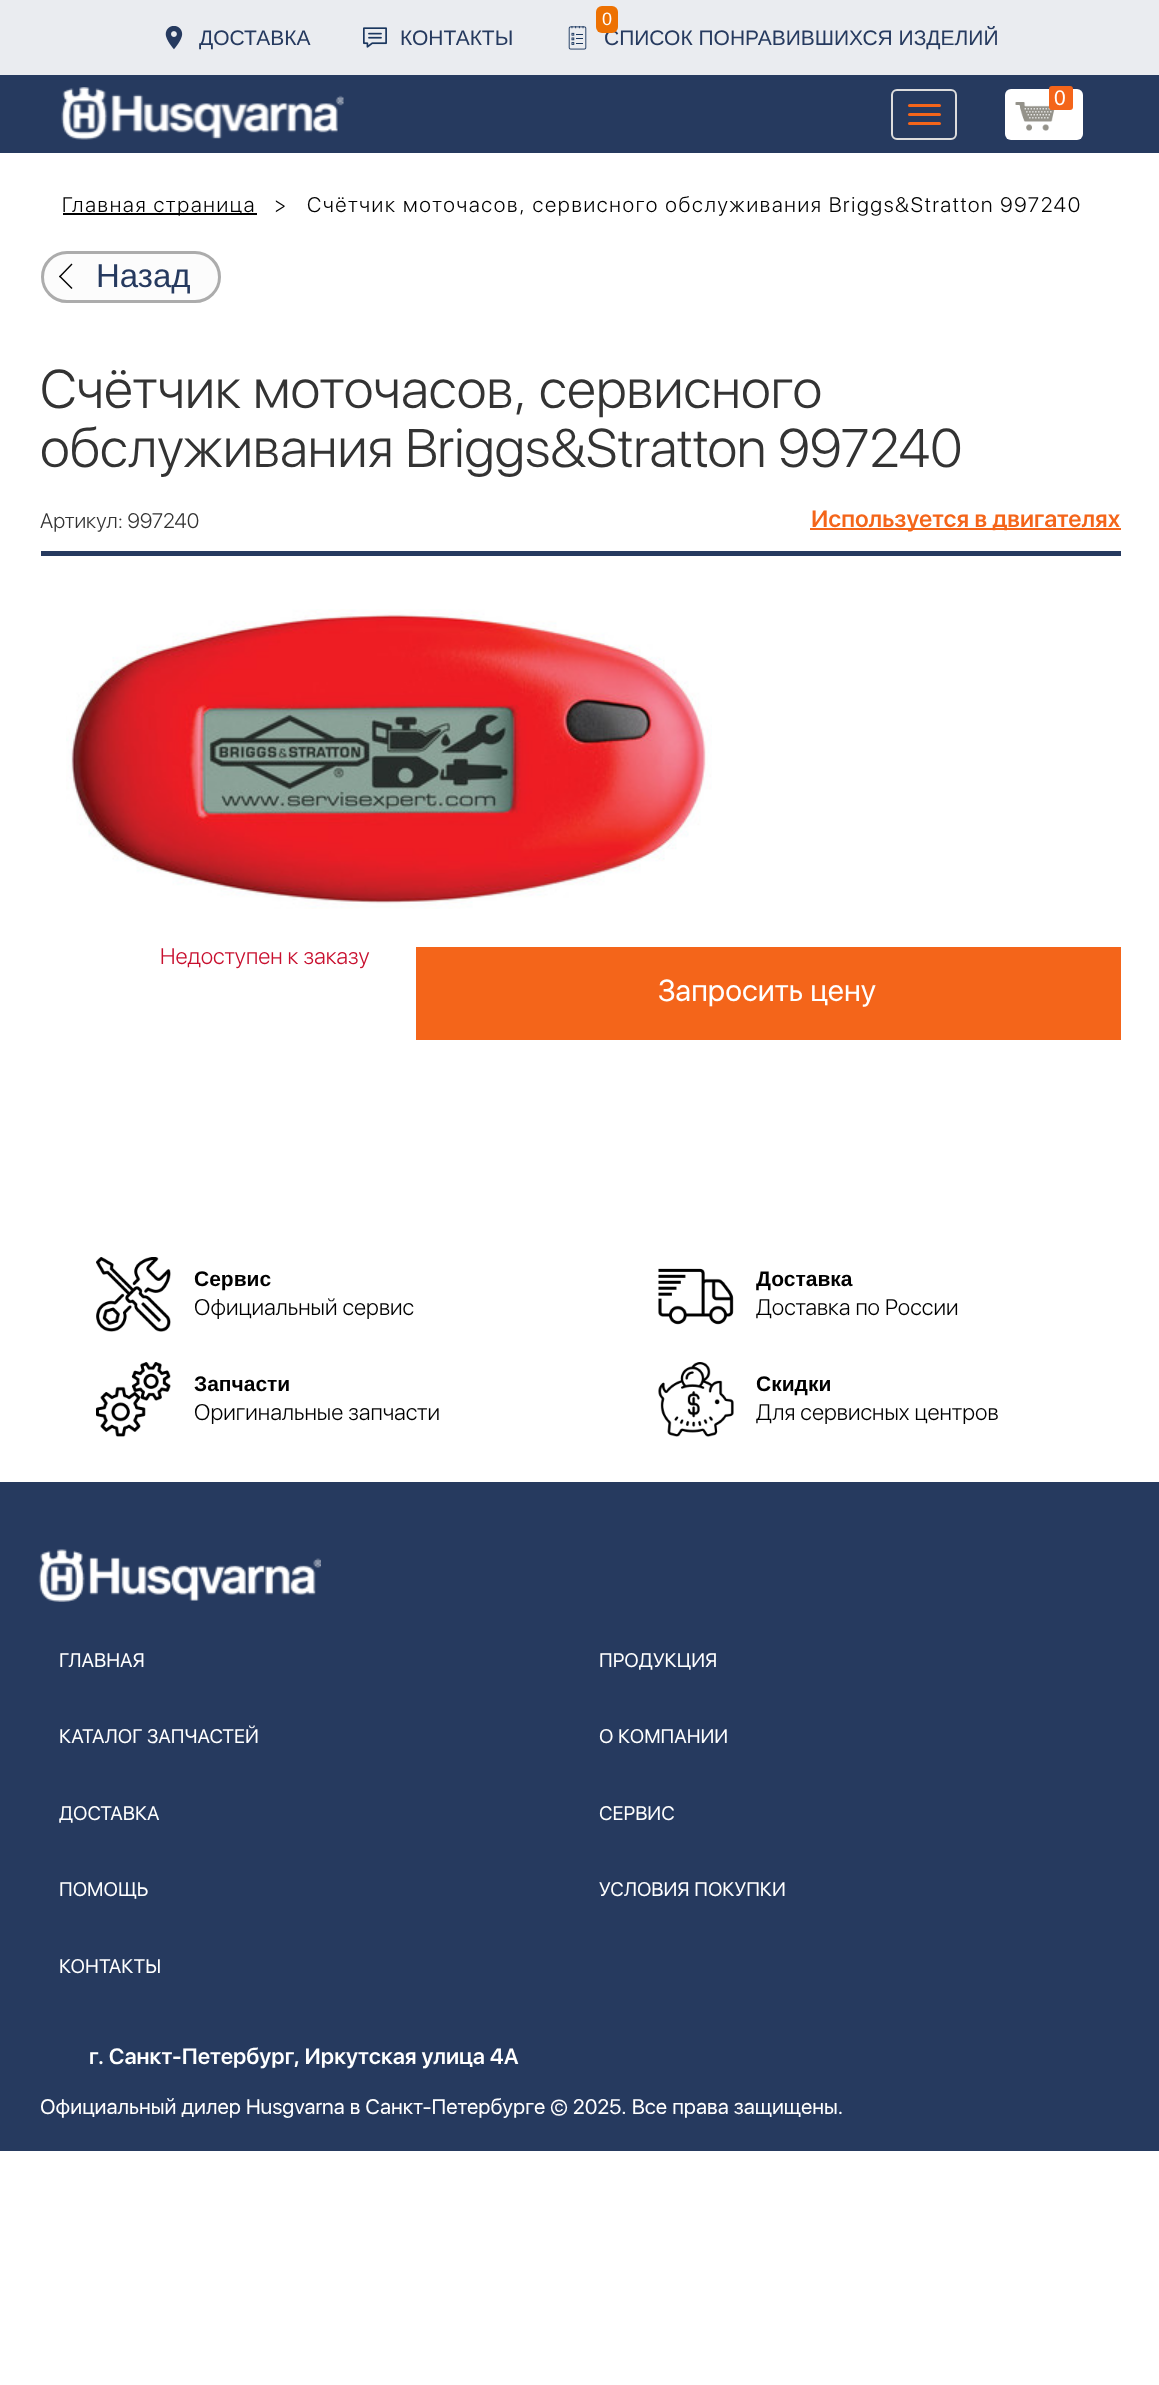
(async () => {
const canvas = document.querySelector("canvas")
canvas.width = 1159
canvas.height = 2385
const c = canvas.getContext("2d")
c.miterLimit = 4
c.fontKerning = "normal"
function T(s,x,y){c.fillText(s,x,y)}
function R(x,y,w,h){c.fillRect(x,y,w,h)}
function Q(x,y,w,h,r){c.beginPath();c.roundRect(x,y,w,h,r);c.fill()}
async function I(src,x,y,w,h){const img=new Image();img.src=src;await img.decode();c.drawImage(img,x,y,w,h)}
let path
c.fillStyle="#fff"
R(0,0,1159,2385)
c.fillStyle="#eaecf0"
R(0,0,1159,75)
await I("1.png",165,26,18,24)
c.font="21px Liberation Sans"
c.fillStyle="#263a5f"
T("ДОСТАВКА",199,45)
await I("2.png",363,27,24,21)
T("КОНТАКТЫ",400,45)
await I("3.png",568,26,19,24)
T("СПИСОК ПОНРАВИВШИХСЯ ИЗДЕЛИЙ",604,45)
c.fillStyle="#ed7102"
Q(596,6,22,27,6)
c.font="18px Liberation Sans"
c.fillStyle="#fff"
T("0",602,25)
c.fillStyle="#263a5f"
R(0,75,1159,78)
await I("4.png",61,87,283,53)
c.beginPath()
c.roundRect(892,90,64,49,5)
c.strokeStyle="#ddd"
c.lineWidth=2
c.stroke()
c.fillStyle="#f4651a"
Q(908,104,33,3,1.5)
Q(908,113,33,3,1.5)
Q(908,122,33,3,1.5)
c.fillStyle="#fff"
Q(1005,89,78,51,6)
await I("5.png",1015,102,40,29)
c.fillStyle="#f4651a"
Q(1049,86,24,24,3)
c.font="21px Liberation Sans"
c.fillStyle="#fff"
T("0",1054,105)
c.fillStyle="#000"
R(63,213,194,2)
c.letterSpacing="1.65px"
c.font="300 21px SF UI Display"
T("Главная страница",62,212)
T(">",274,212)
T("Счётчик моточасов, сервисного обслуживания Briggs&Stratton 997240",307,212)
c.fillStyle="#fcfcfc"
c.beginPath()
c.roundRect(42.5,252.5,177,49,24.5)
c.fill()
c.strokeStyle="#acacac"
c.lineWidth=3
c.stroke()
c.fillStyle="#000"
path = new Path2D("M59 276.5l12.5-13l1 1l-12.5 13z")
c.fill(path)
path = new Path2D("M59 276.5l1-1l12.5 12.5l-1 1z")
c.fill(path)
c.letterSpacing="0px"
c.font="33px Liberation Sans"
c.fillStyle="#263a5f"
T("Назад",96,287)
c.font="300 54px SF UI Display"
c.fillStyle="#333"
T("Счётчик моточасов, сервисного",40,408)
T("обслуживания Briggs&Stratton 997240",40,467)
c.font="300 21px SF UI Display"
T("Артикул: 997240",40,528)
c.fillStyle="#f4651a"
R(810,528,311,2)
c.font="600 24px SF UI Display"
T("Используется в двигателях",811,527)
c.fillStyle="#263a5f"
R(41,551,1080,5)
await I("6.png",66,609,646,300)
c.font="300 22.5px SF UI Display"
c.fillStyle="#c80f2e"
T("Недоступен к заказу",160,964)
c.fillStyle="#f4651a"
R(416,947,705,93)
c.font="30px SF UI Display"
c.fillStyle="#fff"
T("Запросить цену",658,1001)
await I("7.png",96,1257,75,75)
c.font="bold 21px Liberation Sans"
c.fillStyle="#000"
T("Сервис",194,1286)
c.font="300 22.5px SF UI Display"
T("Официальный сервис",194,1315)
await I("8.png",658,1268,76,57)
c.font="bold 21px Liberation Sans"
T("Доставка",756,1286)
c.font="300 22.5px SF UI Display"
T("Доставка по России",756,1315)
await I("9.png",96,1362,75,75)
c.font="bold 21px Liberation Sans"
T("Запчасти",194,1391)
c.font="300 22.5px SF UI Display"
T("Оригинальные запчасти",194,1420)
await I("10.png",658,1362,76,75)
c.font="bold 21px Liberation Sans"
T("Скидки",756,1391)
c.font="300 22.5px SF UI Display"
T("Для сервисных центров",756,1420)
c.fillStyle="#263a5f"
R(0,1482,1159,669)
await I("11.png",38,1549,283,53)
c.font="19.5px SF UI Display"
c.fillStyle="#fff"
T("ГЛАВНАЯ",59,1667)
T("ПРОДУКЦИЯ",599,1667)
T("КАТАЛОГ ЗАПЧАСТЕЙ",59,1743)
T("О КОМПАНИИ",599,1743)
T("ДОСТАВКА",59,1820)
T("СЕРВИС",599,1820)
T("ПОМОЩЬ",59,1896)
T("УСЛОВИЯ ПОКУПКИ",599,1896)
T("КОНТАКТЫ",59,1973)
c.font="600 22.5px SF UI Display"
T("г. Санкт-Петербург, Иркутская улица 4А",89,2064)
c.font="21px SF UI Display"
T("Официальный дилер Husgvarna в Санкт-Петербурге © 2025. Все права защищены.",40,2114)
})()
